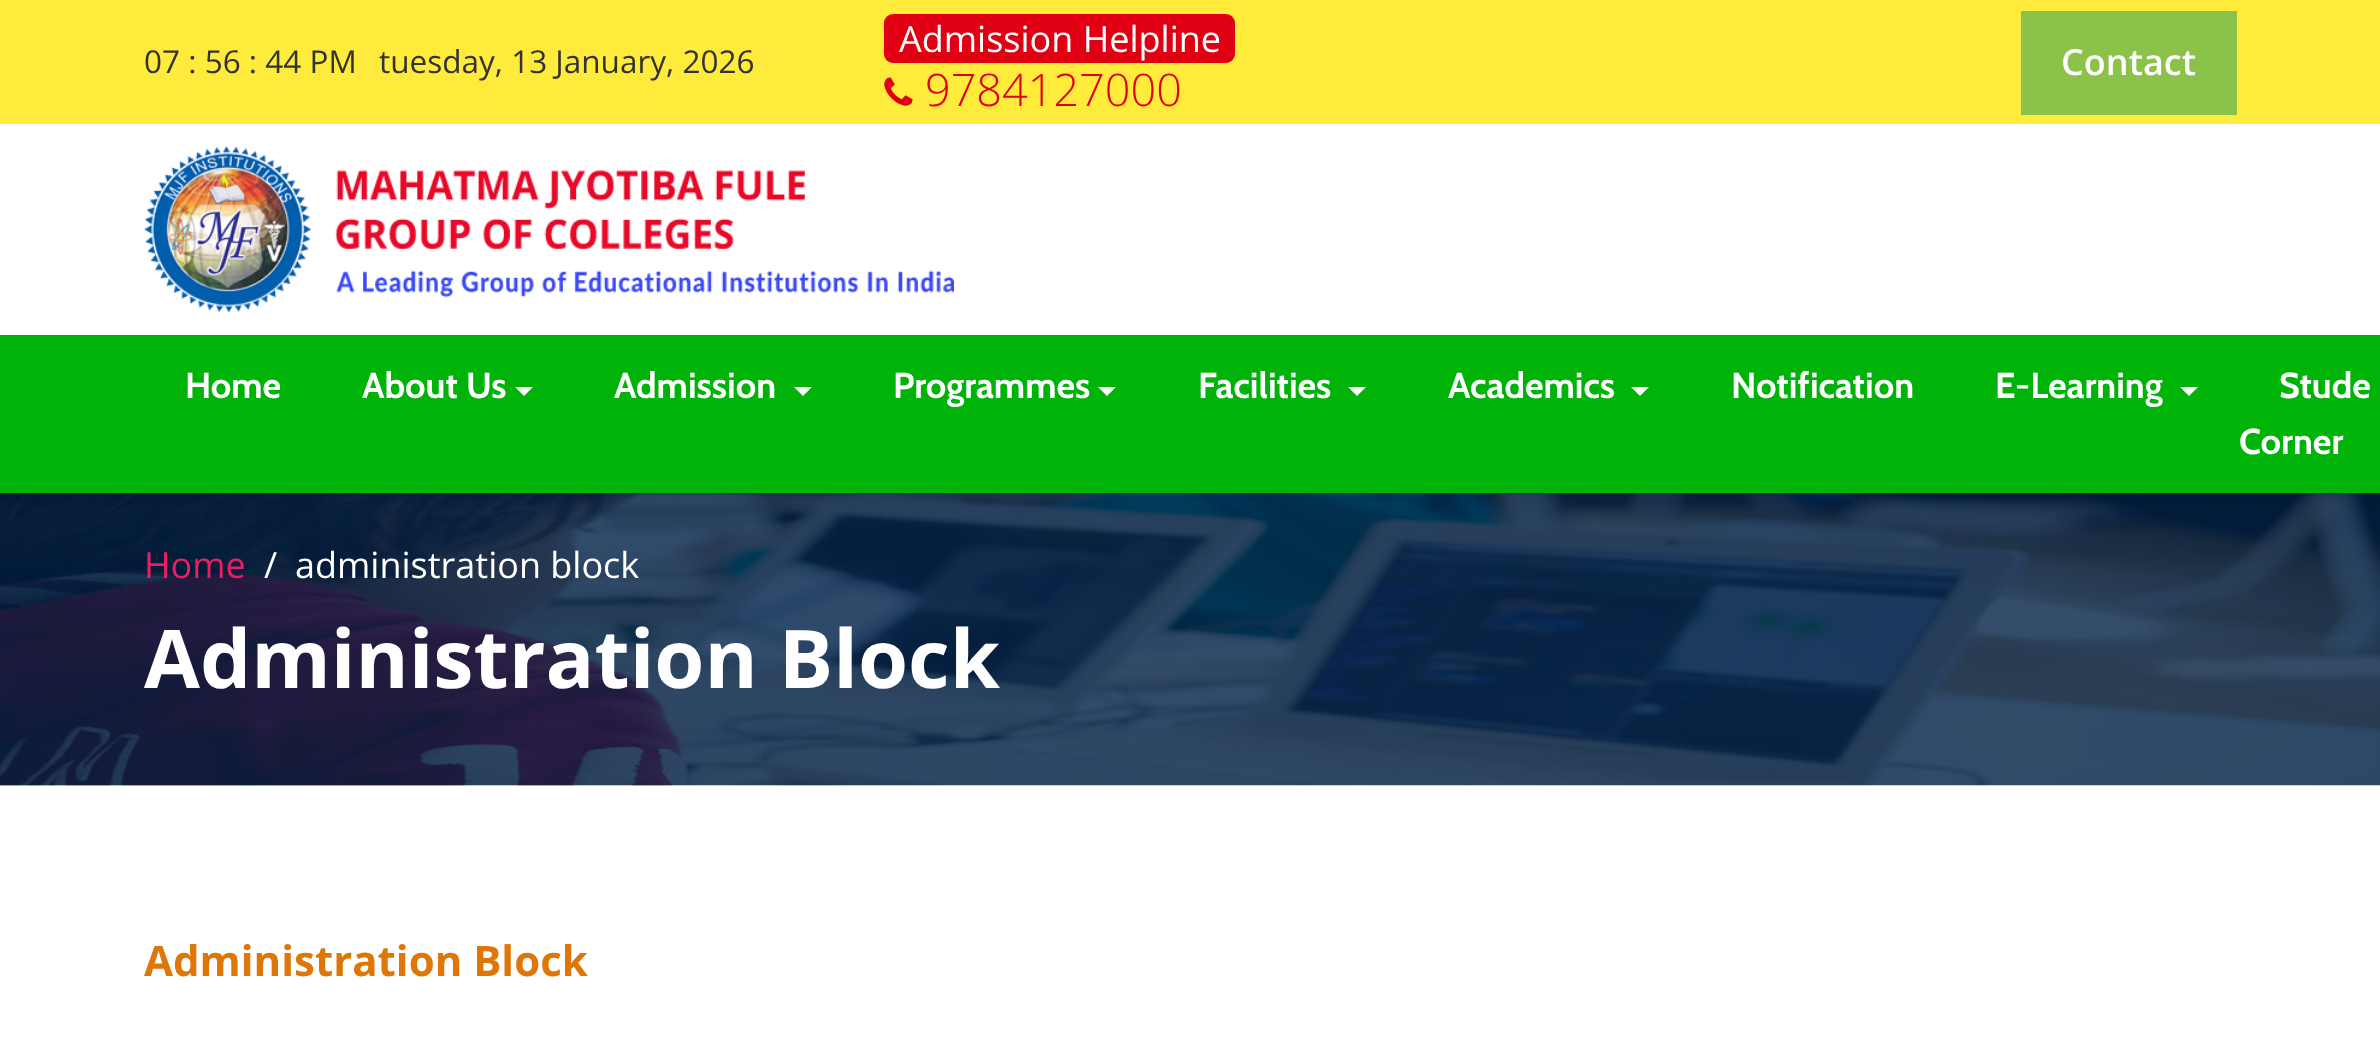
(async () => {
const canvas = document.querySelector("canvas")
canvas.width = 2380
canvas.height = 1037
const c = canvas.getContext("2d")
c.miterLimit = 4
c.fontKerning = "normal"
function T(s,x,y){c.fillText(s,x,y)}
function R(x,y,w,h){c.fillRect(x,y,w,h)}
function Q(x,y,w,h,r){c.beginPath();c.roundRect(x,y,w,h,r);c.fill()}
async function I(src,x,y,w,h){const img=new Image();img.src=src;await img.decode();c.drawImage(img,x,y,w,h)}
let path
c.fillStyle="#fff"
R(0,0,2380,1037)
c.fillStyle="#ffeb3b"
R(0,0,2380,124)
c.font="31.5px Open Sans"
c.fillStyle="#333"
T("07 : 56 : 44 PM",144,73)
T("tuesday, 13 January, 2026",379,73)
c.fillStyle="#e10013"
Q(884,14,351,49,9)
c.font="36px Open Sans"
c.fillStyle="#fff"
T("Admission Helpline",899,52)
await I("1.png",884,77,29,29)
c.font="300 45px Open Sans"
c.fillStyle="#e10013"
T("9784127000",925,106)
c.fillStyle="#8bc34a"
R(2021,11,216,104)
c.font="600 36px Open Sans"
c.fillStyle="#fff"
T("Contact",2061,75)
await I("2.png",144,146,810,167)
await I("3.png",0,493,2380,293)
c.fillStyle="#00000012"
c.filter="blur(4.5px)"
c.beginPath()
c.rect(0,340,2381,157)
c.fill()
c.filter="none"
c.fillStyle="#00b308"
R(0,335,2380,158)
c.font="bold 36px Cabin"
c.fillStyle="#fff"
T("Home",185,398)
T("About Us",362,398)
path = new Path2D("M515 387h18l-9 9z")
c.fill(path)
T("Admission",614,398)
path = new Path2D("M794 387h18l-9 9z")
c.fill(path)
T("Programmes",893,398)
path = new Path2D("M1098 387h18l-9 9z")
c.fill(path)
T("Facilities",1198,398)
path = new Path2D("M1348 387h18l-9 9z")
c.fill(path)
T("Academics",1448,398)
path = new Path2D("M1631 387h18l-9 9z")
c.fill(path)
T("Notification",1731,398)
T("E-Learning",1995,398)
path = new Path2D("M2180 387h18l-9 9z")
c.fill(path)
T("Stude",2279,398)
T("Corner",2239,454)
c.font="36px Open Sans"
c.fillStyle="#e91e63"
T("Home",144,578)
c.fillStyle="#fff"
T("/",264,578)
T("administration block",295,578)
c.font="bold 81px Open Sans"
T("Administration Block",144,688)
c.font="bold 42px Open Sans"
c.fillStyle="#de7608"
T("Administration Block",144,976)
})()
